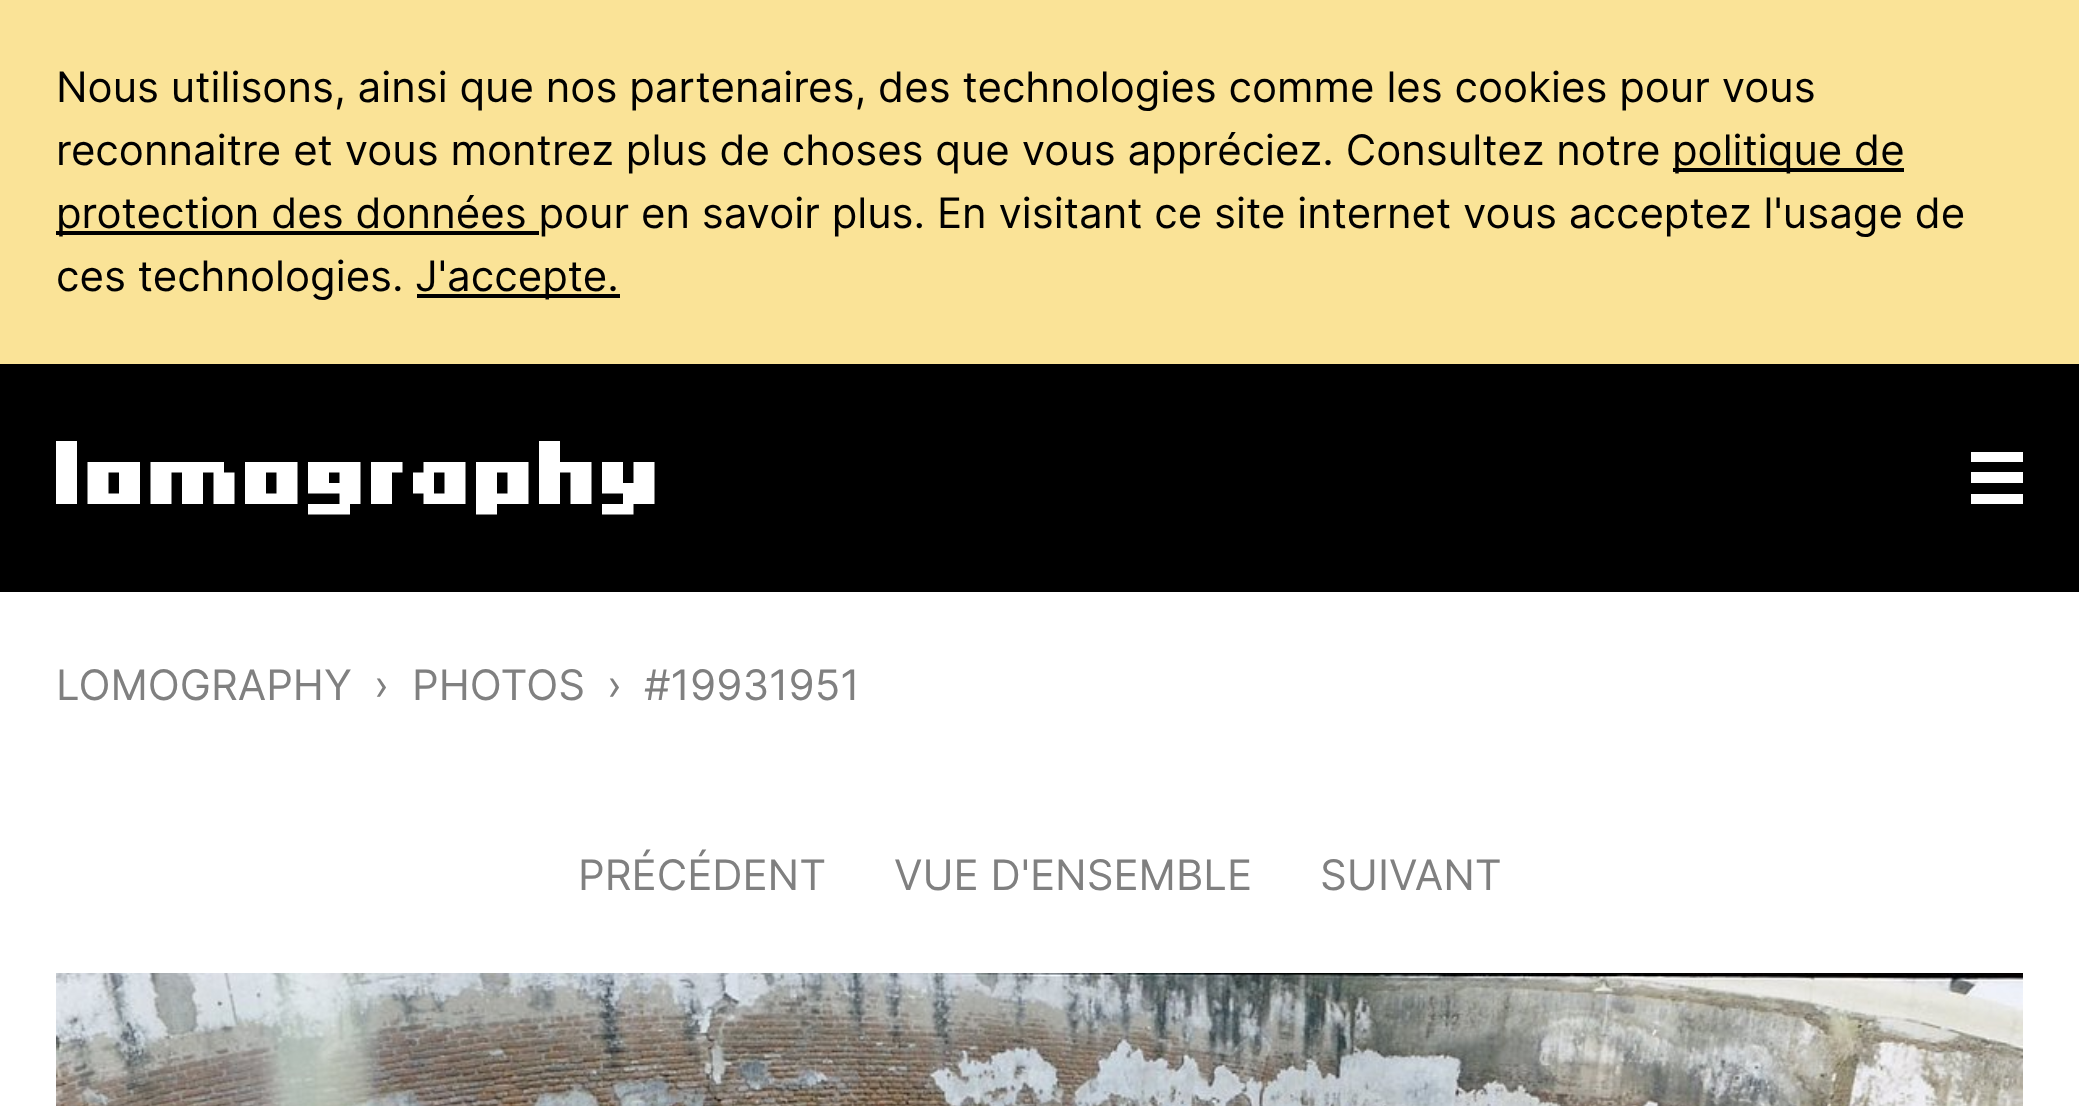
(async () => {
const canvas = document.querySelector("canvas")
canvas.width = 2079
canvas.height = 1106
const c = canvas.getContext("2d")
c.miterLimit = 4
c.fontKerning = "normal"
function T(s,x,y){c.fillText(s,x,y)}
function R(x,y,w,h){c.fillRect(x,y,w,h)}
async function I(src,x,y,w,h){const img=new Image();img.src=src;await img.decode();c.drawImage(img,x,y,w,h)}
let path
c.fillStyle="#fff"
R(0,0,2079,1106)
c.fillStyle="#fae397"
R(0,0,2079,364)
c.font="42px Inter"
c.fillStyle="#000"
T("Nous utilisons, ainsi que nos partenaires, des technologies comme les cookies pour vous",56,102)
T("reconnaitre et vous montrez plus de choses que vous appréciez. Consultez notre",56,165)
R(1673,168,231,4)
T("politique de",1672,165)
R(56,231,483,4)
T("protection des données pour en savoir plus. En visitant ce site internet vous acceptez l'usage de",56,228)
T("ces technologies.",56,291)
R(417,294,203,4)
T("J'accepte.",415,291)
R(0,364,2079,228)
await I("1.png",56,441,599,74)
c.save()
c.beginPath()
c.rect(1971,452,52,52)
c.clip()
c.fillStyle="#fff"
path = new Path2D("M1970 452v10h53v-10zm0 20v11h53v-11zm0 22v10h53v-10z")
c.fill(path)
c.restore()
c.fillStyle="#808080"
T("LOMOGRAPHY",56,700)
T("›",374,700)
T("PHOTOS",412,700)
T("›",607,700)
T("#19931951",644,700)
T("PRÉCÉDENT",578,890)
T("VUE D'ENSEMBLE",894,890)
T("SUIVANT",1320,890)
await I("2.png",56,973,1967,133)
})()
